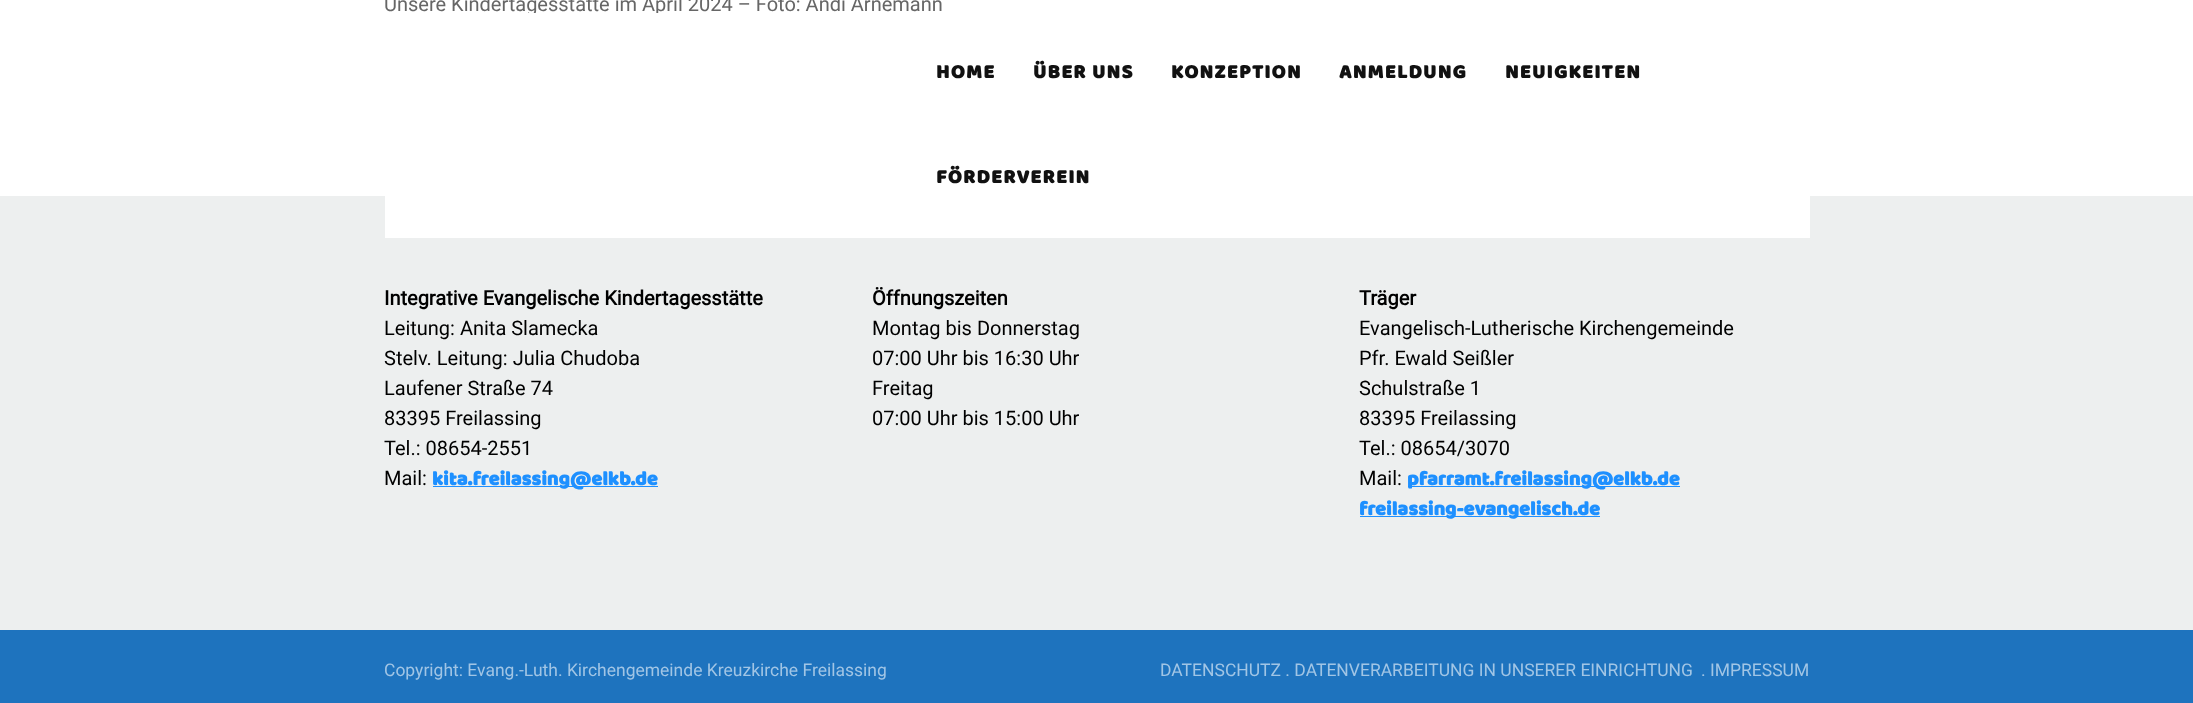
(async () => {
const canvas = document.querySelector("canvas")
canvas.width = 2193
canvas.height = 703
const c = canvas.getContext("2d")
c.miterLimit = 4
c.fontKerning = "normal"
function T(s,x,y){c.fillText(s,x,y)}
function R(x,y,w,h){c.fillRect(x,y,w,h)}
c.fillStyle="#fff"
R(0,0,2193,703)
c.font="20px Roboto"
c.fillStyle="#666"
T("Unsere Kindertagesstätte im April 2024 – Foto: Andi Arnemann",384,11)
c.fillStyle="#edefef"
R(0,196,2193,434)
c.fillStyle="#fff"
R(385,13,1425,225)
c.letterSpacing="1.25px"
c.font="bold 20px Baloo"
c.fillStyle="#111"
T("HOME",936,78)
T("ÜBER UNS",1033,78)
T("KONZEPTION",1171,78)
T("ANMELDUNG",1339,78)
T("NEUIGKEITEN",1505,78)
T("FÖRDERVEREIN",936,183)
c.letterSpacing="0px"
c.font="bold 20px Roboto"
c.fillStyle="#000"
T("Integrative Evangelische Kindertagesstätte",384,305)
c.font="20px Roboto"
T("Leitung: Anita Slamecka",384,335)
T("Stelv. Leitung: Julia Chudoba",384,365)
T("Laufener Straße 74",384,395)
T("83395 Freilassing",384,425)
T("Tel.: 08654-2551",384,455)
T("Mail:",384,485)
c.fillStyle="#1e90ff"
R(433,486,225,1)
c.font="bold 20px Baloo"
T("kita.freilassing@elkb.de",432,485)
c.font="bold 20px Roboto"
c.fillStyle="#000"
T("Öffnungszeiten",872,305)
c.font="20px Roboto"
T("Montag bis Donnerstag",872,335)
T("07:00 Uhr bis 16:30 Uhr",872,365)
T("Freitag",872,395)
T("07:00 Uhr bis 15:00 Uhr",872,425)
c.font="bold 20px Roboto"
T("Träger",1359,305)
c.font="20px Roboto"
T("Evangelisch-Lutherische Kirchengemeinde",1359,335)
T("Pfr. Ewald Seißler",1359,365)
T("Schulstraße 1",1359,395)
T("83395 Freilassing",1359,425)
T("Tel.: 08654/3070",1359,455)
T("Mail:",1359,485)
c.fillStyle="#1e90ff"
R(1408,486,272,1)
c.font="bold 20px Baloo"
T("pfarramt.freilassing@elkb.de",1407,485)
R(1360,516,240,1)
T("freilassing-evangelisch.de",1359,515)
c.fillStyle="#1e73be"
R(0,630,2193,73)
c.font="17.5px Roboto"
c.fillStyle="#a1c5e5"
T("Copyright: Evang.-Luth. Kirchengemeinde Kreuzkirche Freilassing",384,676)
T("DATENSCHUTZ . DATENVERARBEITUNG IN UNSERER EINRICHTUNG",1160,676)
T(". IMPRESSUM",1701,676)
})()
